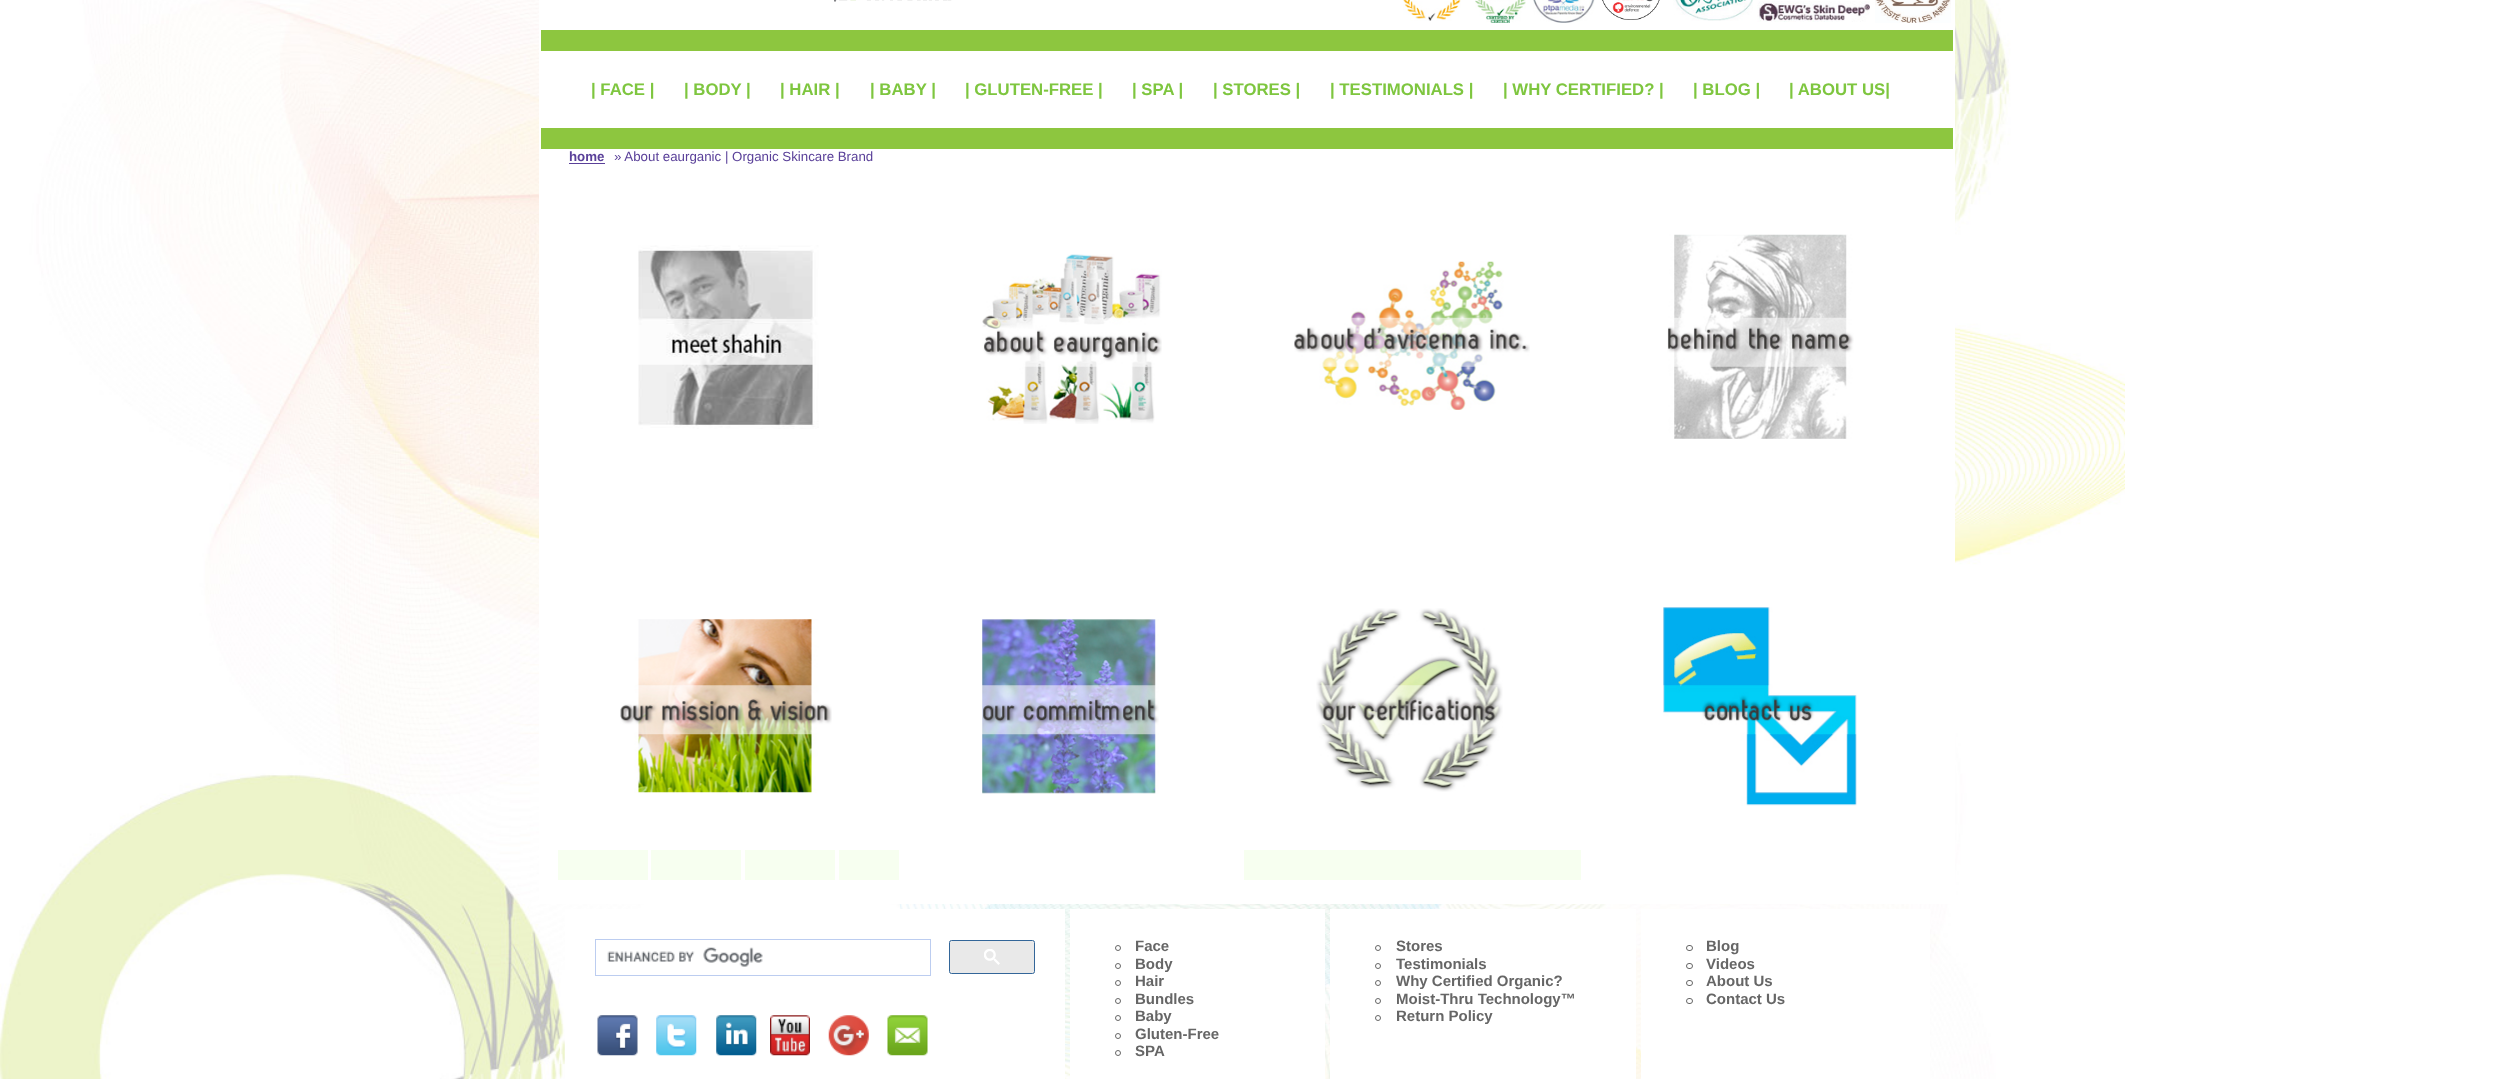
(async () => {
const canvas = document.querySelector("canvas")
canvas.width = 2493
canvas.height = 1079
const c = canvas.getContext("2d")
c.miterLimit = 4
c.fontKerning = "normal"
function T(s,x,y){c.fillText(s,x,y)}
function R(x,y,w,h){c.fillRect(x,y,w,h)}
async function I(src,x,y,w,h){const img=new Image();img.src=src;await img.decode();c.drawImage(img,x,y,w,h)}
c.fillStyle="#fff"
R(0,0,2493,1079)
await I("1.png",0,0,2125,1079)
R(539,0,1416,904)
await I("2.png",834,0,118,2)
await I("3.png",1403,0,58,21)
await I("4.png",1475,0,51,23)
await I("5.png",1533,0,62,23)
await I("6.png",1602,0,58,20)
await I("7.png",1673,0,80,21)
await I("8.png",1757,1,113,21)
await I("9.png",1875,0,76,23)
c.fillStyle="#8dc63f"
R(541,30,1412,21)
c.font="bold 16.75px Liberation Sans"
c.fillStyle="#7ec63f"
T("| FACE |",591,95)
T("| BODY |",684,95)
T("| HAIR |",780,95)
T("| BABY |",870,95)
T("| GLUTEN-FREE |",965,95)
T("| SPA |",1132,95)
T("| STORES |",1213,95)
T("| TESTIMONIALS |",1330,95)
T("| WHY CERTIFIED? |",1503,95)
T("| BLOG |",1693,95)
T("| ABOUT US|",1789,95)
c.fillStyle="#8dc63f"
R(541,128,1412,21)
c.font="bold 13.3px Liberation Sans"
c.fillStyle="#5a4099"
T("home",569,161)
R(569,163,36,1)
c.font="13.3px Liberation Sans"
T("» About eaurganic | Organic Skincare Brand",614,161)
await I("10.png",638,245,181,184)
await I("11.png",982,254,180,170)
await I("12.png",1294,261,236,149)
await I("13.png",1667,234,187,205)
await I("14.png",620,619,212,174)
await I("15.png",982,619,177,175)
await I("16.png",1316,608,187,184)
await I("17.png",1663,607,194,199)
c.fillStyle="#f7fff0"
R(558,850,90,30)
R(651,850,90,30)
R(745,850,90,30)
R(839,850,60,30)
R(1244,850,337,30)
c.fillStyle="#fff"
R(565,909,500,170)
c.strokeStyle="#bccdf0"
c.strokeRect(595.5,939.5,335,36)
await I("18.png",607,947,156,20)
c.fillStyle="#e9e9e9"
c.beginPath()
c.roundRect(949.5,940.5,85,33,2)
c.fill()
c.strokeStyle="#369"
c.stroke()
await I("19.png",984,949,16,16)
await I("20.png",597,1015,41,41)
await I("21.png",656,1015,41,41)
await I("22.png",716,1015,41,41)
await I("23.png",770,1015,40,41)
await I("24.png",828,1015,41,41)
await I("25.png",887,1015,41,41)
c.fillStyle="#fff"
R(1070,909,255,170)
c.beginPath()
c.arc(1118,948,2.5,0,7)
c.strokeStyle="#666"
c.stroke()
c.font="bold 15px Liberation Sans"
c.fillStyle="#666"
T("Face",1135,951)
c.beginPath()
c.arc(1118,966,2.5,0,7)
c.stroke()
T("Body",1135,969)
c.beginPath()
c.arc(1118,983,2.5,0,7)
c.stroke()
T("Hair",1135,986)
c.beginPath()
c.arc(1118,1001,2.5,0,7)
c.stroke()
T("Bundles",1135,1004)
c.beginPath()
c.arc(1118,1018,2.5,0,7)
c.stroke()
T("Baby",1135,1021)
c.beginPath()
c.arc(1118,1036,2.5,0,7)
c.stroke()
T("Gluten-Free",1135,1039)
c.beginPath()
c.arc(1118,1053,2.5,0,7)
c.stroke()
T("SPA",1135,1056)
c.fillStyle="#fff"
R(1330,909,306,170)
c.beginPath()
c.arc(1378,948,2.5,0,7)
c.stroke()
c.fillStyle="#666"
T("Stores",1396,951)
c.beginPath()
c.arc(1378,966,2.5,0,7)
c.stroke()
T("Testimonials",1396,969)
c.beginPath()
c.arc(1378,983,2.5,0,7)
c.stroke()
T("Why Certified Organic?",1396,986)
c.beginPath()
c.arc(1378,1001,2.5,0,7)
c.stroke()
T("Moist-Thru Technology™",1396,1004)
c.beginPath()
c.arc(1378,1018,2.5,0,7)
c.stroke()
T("Return Policy",1396,1021)
c.fillStyle="#fff"
R(1641,909,289,170)
c.beginPath()
c.roundRect(1686.5,945.5,6,5,2.5)
c.stroke()
c.fillStyle="#666"
T("Blog",1706,951)
c.beginPath()
c.roundRect(1686.5,963.5,6,5,2.5)
c.stroke()
T("Videos",1706,969)
c.beginPath()
c.roundRect(1686.5,980.5,6,5,2.5)
c.stroke()
T("About Us",1706,986)
c.beginPath()
c.roundRect(1686.5,998.5,6,5,2.5)
c.stroke()
T("Contact Us",1706,1004)
})()
